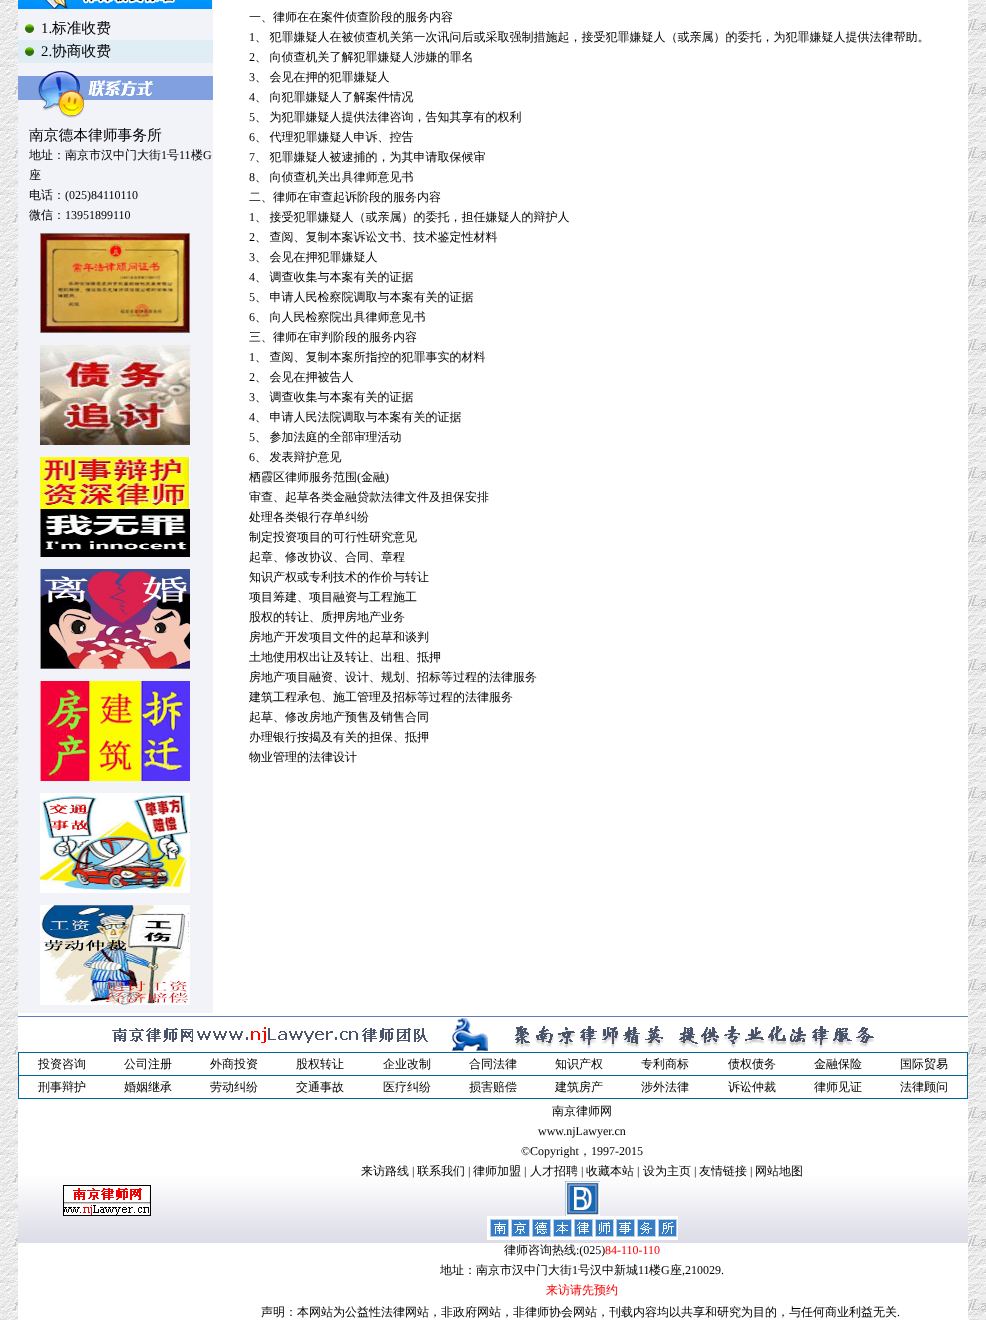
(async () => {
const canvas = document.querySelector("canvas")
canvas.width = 986
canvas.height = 1320
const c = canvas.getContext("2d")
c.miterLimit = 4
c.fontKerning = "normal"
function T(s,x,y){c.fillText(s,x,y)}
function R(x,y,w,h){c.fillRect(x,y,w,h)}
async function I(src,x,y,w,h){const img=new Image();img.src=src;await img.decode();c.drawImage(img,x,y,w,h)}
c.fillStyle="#fff"
R(0,0,986,1320)
await I("1.png",0,0,986,1320)
R(213,0,755,1013)
c.fillStyle="#f2f2f9"
R(18,0,195,1013)
await I("2.png",18,0,194,9)
await I("3.png",25,24,9,9)
c.font="14.75px Liberation Serif"
c.fillStyle="#000"
T("1.",41,33)
c.font="500 14.75px WenQuanYi Zen Hei"
T("标准收费",52,33)
c.fillStyle="#e1edf5"
R(18,40,195,23)
await I("4.png",25,47,9,9)
c.font="14.75px Liberation Serif"
c.fillStyle="#000"
T("2.",41,56)
c.font="500 14.75px WenQuanYi Zen Hei"
T("协商收费",52,56)
await I("5.png",18,71,195,47)
T("南京德本律师事务所",29,140)
c.font="500 12px WenQuanYi Zen Hei"
T("地址：南京市汉中门大街",29,159)
c.font="12px Liberation Serif"
T("1",161,159)
c.font="500 12px WenQuanYi Zen Hei"
T("号",167,159)
c.font="12px Liberation Serif"
T("11",179,159)
c.font="500 12px WenQuanYi Zen Hei"
T("楼",191,159)
c.font="12px Liberation Serif"
T("G",203,159)
c.font="500 12px WenQuanYi Zen Hei"
T("座",29,179)
T("电话：",29,199)
c.font="12px Liberation Serif"
T("(025)84110110",65,199)
c.font="500 12px WenQuanYi Zen Hei"
T("微信：",29,219)
c.font="12px Liberation Serif"
T("13951899110",65,219)
await I("6.png",40,233,150,100)
await I("7.png",40,345,150,100)
await I("8.png",40,457,150,100)
await I("9.png",40,569,150,100)
await I("10.png",40,681,150,100)
await I("11.png",40,793,150,100)
await I("12.png",40,905,150,100)
c.font="500 12px WenQuanYi Zen Hei"
T("一、律师在在案件侦查阶段的服务内容",249,21)
c.font="12px Liberation Serif"
T("1",249,41)
c.wordSpacing="-1px"
c.font="500 12px WenQuanYi Zen Hei"
T("、 犯罪嫌疑人在被侦查机关第一次讯问后或采取强制措施起，接受犯罪嫌疑人（或亲属）的委托，为犯罪嫌疑人提供法律帮助。",255,41)
c.wordSpacing="0px"
c.font="12px Liberation Serif"
T("2",249,61)
c.wordSpacing="-1px"
c.font="500 12px WenQuanYi Zen Hei"
T("、 向侦查机关了解犯罪嫌疑人涉嫌的罪名",255,61)
c.wordSpacing="0px"
c.font="12px Liberation Serif"
T("3",249,81)
c.wordSpacing="-1px"
c.font="500 12px WenQuanYi Zen Hei"
T("、 会见在押的犯罪嫌疑人",255,81)
c.wordSpacing="0px"
c.font="12px Liberation Serif"
T("4",249,101)
c.wordSpacing="-1px"
c.font="500 12px WenQuanYi Zen Hei"
T("、 向犯罪嫌疑人了解案件情况",255,101)
c.wordSpacing="0px"
c.font="12px Liberation Serif"
T("5",249,121)
c.wordSpacing="-1px"
c.font="500 12px WenQuanYi Zen Hei"
T("、 为犯罪嫌疑人提供法律咨询，告知其享有的权利",255,121)
c.wordSpacing="0px"
c.font="12px Liberation Serif"
T("6",249,141)
c.wordSpacing="-1px"
c.font="500 12px WenQuanYi Zen Hei"
T("、 代理犯罪嫌疑人申诉、控告",255,141)
c.wordSpacing="0px"
c.font="12px Liberation Serif"
T("7",249,161)
c.wordSpacing="-1px"
c.font="500 12px WenQuanYi Zen Hei"
T("、 犯罪嫌疑人被逮捕的，为其申请取保候审",255,161)
c.wordSpacing="0px"
c.font="12px Liberation Serif"
T("8",249,181)
c.wordSpacing="-1px"
c.font="500 12px WenQuanYi Zen Hei"
T("、 向侦查机关出具律师意见书",255,181)
c.wordSpacing="0px"
T("二、律师在审查起诉阶段的服务内容",249,201)
c.font="12px Liberation Serif"
T("1",249,221)
c.wordSpacing="-1px"
c.font="500 12px WenQuanYi Zen Hei"
T("、 接受犯罪嫌疑人（或亲属）的委托，担任嫌疑人的辩护人",255,221)
c.wordSpacing="0px"
c.font="12px Liberation Serif"
T("2",249,241)
c.wordSpacing="-1px"
c.font="500 12px WenQuanYi Zen Hei"
T("、 查阅、复制本案诉讼文书、技术鉴定性材料",255,241)
c.wordSpacing="0px"
c.font="12px Liberation Serif"
T("3",249,261)
c.wordSpacing="-1px"
c.font="500 12px WenQuanYi Zen Hei"
T("、 会见在押犯罪嫌疑人",255,261)
c.wordSpacing="0px"
c.font="12px Liberation Serif"
T("4",249,281)
c.wordSpacing="-1px"
c.font="500 12px WenQuanYi Zen Hei"
T("、 调查收集与本案有关的证据",255,281)
c.wordSpacing="0px"
c.font="12px Liberation Serif"
T("5",249,301)
c.wordSpacing="-1px"
c.font="500 12px WenQuanYi Zen Hei"
T("、 申请人民检察院调取与本案有关的证据",255,301)
c.wordSpacing="0px"
c.font="12px Liberation Serif"
T("6",249,321)
c.wordSpacing="-1px"
c.font="500 12px WenQuanYi Zen Hei"
T("、 向人民检察院出具律师意见书",255,321)
c.wordSpacing="0px"
T("三、律师在审判阶段的服务内容",249,341)
c.font="12px Liberation Serif"
T("1",249,361)
c.wordSpacing="-1px"
c.font="500 12px WenQuanYi Zen Hei"
T("、 查阅、复制本案所指控的犯罪事实的材料",255,361)
c.wordSpacing="0px"
c.font="12px Liberation Serif"
T("2",249,381)
c.wordSpacing="-1px"
c.font="500 12px WenQuanYi Zen Hei"
T("、 会见在押被告人",255,381)
c.wordSpacing="0px"
c.font="12px Liberation Serif"
T("3",249,401)
c.wordSpacing="-1px"
c.font="500 12px WenQuanYi Zen Hei"
T("、 调查收集与本案有关的证据",255,401)
c.wordSpacing="0px"
c.font="12px Liberation Serif"
T("4",249,421)
c.wordSpacing="-1px"
c.font="500 12px WenQuanYi Zen Hei"
T("、 申请人民法院调取与本案有关的证据",255,421)
c.wordSpacing="0px"
c.font="12px Liberation Serif"
T("5",249,441)
c.wordSpacing="-1px"
c.font="500 12px WenQuanYi Zen Hei"
T("、 参加法庭的全部审理活动",255,441)
c.wordSpacing="0px"
c.font="12px Liberation Serif"
T("6",249,461)
c.wordSpacing="-1px"
c.font="500 12px WenQuanYi Zen Hei"
T("、 发表辩护意见",255,461)
c.wordSpacing="0px"
T("栖霞区律师服务范围",249,481)
c.font="12px Liberation Serif"
T("(",357,481)
c.font="500 12px WenQuanYi Zen Hei"
T("金融",361,481)
c.font="12px Liberation Serif"
T(")",385,481)
c.font="500 12px WenQuanYi Zen Hei"
T("审查、起草各类金融贷款法律文件及担保安排",249,501)
T("处理各类银行存单纠纷",249,521)
T("制定投资项目的可行性研究意见",249,541)
T("起章、修改协议、合同、章程",249,561)
T("知识产权或专利技术的作价与转让",249,581)
T("项目筹建、项目融资与工程施工",249,601)
T("股权的转让、质押房地产业务",249,621)
T("房地产开发项目文件的起草和谈判",249,641)
T("土地使用权出让及转让、出租、抵押",249,661)
T("房地产项目融资、设计、规划、招标等过程的法律服务",249,681)
T("建筑工程承包、施工管理及招标等过程的法律服务",249,701)
T("起草、修改房地产预售及销售合同",249,721)
T("办理银行按揭及有关的担保、抵押",249,741)
T("物业管理的法律设计",249,761)
c.fillStyle="#fff"
R(18,1013,950,3)
c.fillStyle="#5e7dbd"
R(18,1016,950,1)
c.fillStyle="#fff"
R(18,1017,950,35)
await I("13.png",112,1018,763,34)
c.fillStyle="#069"
R(18,1052,950,47)
c.fillStyle="#fff"
R(19,1053,948,22)
c.fillStyle="#000"
T("投资咨询",38,1068)
T("公司注册",124,1068)
T("外商投资",210,1068)
T("股权转让",296,1068)
T("企业改制",383,1068)
T("合同法律",469,1068)
T("知识产权",555,1068)
T("专利商标",641,1068)
T("债权债务",728,1068)
T("金融保险",814,1068)
T("国际贸易",900,1068)
c.fillStyle="#fff"
R(19,1076,948,22)
c.fillStyle="#000"
T("刑事辩护",38,1091)
T("婚姻继承",124,1091)
T("劳动纠纷",210,1091)
T("交通事故",296,1091)
T("医疗纠纷",383,1091)
T("损害赔偿",469,1091)
T("建筑房产",555,1091)
T("涉外法律",641,1091)
T("诉讼仲裁",728,1091)
T("律师见证",814,1091)
T("法律顾问",900,1091)
await I("14.png",18,1099,950,203)
await I("15.png",63,1185,88,31)
T("南京律师网",552,1115)
c.font="12px Liberation Serif"
T("www.njLawyer.cn",538,1135)
T("©Copyright",521,1155)
c.font="500 12px WenQuanYi Zen Hei"
T("，",579,1155)
c.font="12px Liberation Serif"
T("1997-2015",591,1155)
c.font="500 12px WenQuanYi Zen Hei"
T("来访路线",361,1175)
c.font="12px Liberation Serif"
T("|",412,1175)
c.font="500 12px WenQuanYi Zen Hei"
T("联系我们",417,1175)
c.font="12px Liberation Serif"
T("|",468,1175)
c.font="500 12px WenQuanYi Zen Hei"
T("律师加盟",473,1175)
c.font="12px Liberation Serif"
T("|",524,1175)
c.font="500 12px WenQuanYi Zen Hei"
T("人才招聘",530,1175)
c.font="12px Liberation Serif"
T("|",581,1175)
c.font="500 12px WenQuanYi Zen Hei"
T("收藏本站",586,1175)
c.font="12px Liberation Serif"
T("|",637,1175)
c.font="500 12px WenQuanYi Zen Hei"
T("设为主页",643,1175)
c.font="12px Liberation Serif"
T("|",694,1175)
c.font="500 12px WenQuanYi Zen Hei"
T("友情链接",699,1175)
c.font="12px Liberation Serif"
T("|",750,1175)
c.font="500 12px WenQuanYi Zen Hei"
T("网站地图",755,1175)
await I("16.png",565,1181,35,35)
await I("17.png",487,1216,191,24)
T("律师咨询热线",504,1254)
c.font="12px Liberation Serif"
T(":(025)",576,1254)
c.fillStyle="#f00"
T("84-110-110",605,1254)
c.font="500 12px WenQuanYi Zen Hei"
c.fillStyle="#000"
T("地址：南京市汉中门大街",440,1274)
c.font="12px Liberation Serif"
T("1",572,1274)
c.font="500 12px WenQuanYi Zen Hei"
T("号汉中新城",578,1274)
c.font="12px Liberation Serif"
T("11",638,1274)
c.font="500 12px WenQuanYi Zen Hei"
T("楼",649,1274)
c.font="12px Liberation Serif"
T("G",661,1274)
c.font="500 12px WenQuanYi Zen Hei"
T("座",670,1274)
c.font="12px Liberation Serif"
T(",210029.",682,1274)
c.font="500 12px WenQuanYi Zen Hei"
c.fillStyle="#f00"
T("来访请先预约",546,1294)
c.fillStyle="#fff"
R(18,1302,950,18)
c.fillStyle="#000"
T("声明：本网站为公益性法律网站，非政府网站，非律师协会网站，刊载内容均以共享和研究为目的，与任何商业利益无关",261,1316)
c.font="12px Liberation Serif"
T(".",897,1316)
})()
